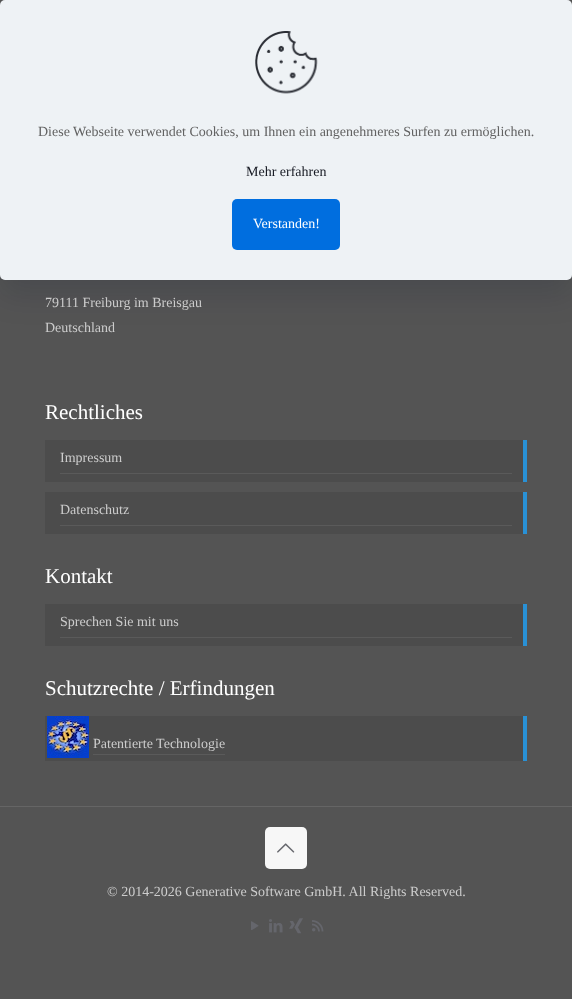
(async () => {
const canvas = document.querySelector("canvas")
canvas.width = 572
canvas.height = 999
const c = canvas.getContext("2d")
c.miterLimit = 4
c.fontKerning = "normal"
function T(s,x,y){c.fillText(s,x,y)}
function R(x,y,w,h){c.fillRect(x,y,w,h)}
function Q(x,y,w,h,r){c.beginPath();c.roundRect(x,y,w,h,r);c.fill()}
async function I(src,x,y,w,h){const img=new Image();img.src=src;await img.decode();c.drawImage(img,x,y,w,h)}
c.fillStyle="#545454"
R(0,0,572,999)
c.fillStyle="#01072721"
c.filter="blur(15px)"
c.beginPath()
c.roundRect(0,15,572,280,5)
c.fill()
c.filter="none"
c.fillStyle="#eef2f5"
Q(0,0,572,280,5)
await I("1.png",255,31,63,63)
c.font="14px Liberation Serif"
c.fillStyle="#626262"
T("Diese Webseite verwendet Cookies, um Ihnen ein angenehmeres Surfen zu ermöglichen.",38,136)
c.fillStyle="#161922"
T("Mehr erfahren",246,176)
c.fillStyle="#006edf"
Q(232,199,108,51,5)
c.fillStyle="#fff"
T("Verstanden!",253,228)
c.fillStyle="#ccc"
T("79111 Freiburg im Breisgau",45,307)
T("Deutschland",45,332)
c.font="21px Liberation Serif"
c.fillStyle="#fff"
T("Rechtliches",45,419)
c.fillStyle="#4c4c4c"
R(45,440,478,42)
c.fillStyle="#5a5a5a"
R(60,473,452,1)
c.font="14px Liberation Serif"
c.fillStyle="#ccc"
T("Impressum",60,462)
c.fillStyle="#2991d6"
R(523,440,4,42)
c.fillStyle="#4c4c4c"
R(45,492,478,42)
c.fillStyle="#5a5a5a"
R(60,525,452,1)
c.fillStyle="#ccc"
T("Datenschutz",60,514)
c.fillStyle="#2991d6"
R(523,492,4,42)
c.font="21px Liberation Serif"
c.fillStyle="#fff"
T("Kontakt",45,583)
c.fillStyle="#4c4c4c"
R(45,604,478,42)
c.fillStyle="#5a5a5a"
R(60,637,452,1)
c.font="14px Liberation Serif"
c.fillStyle="#ccc"
T("Sprechen Sie mit uns",60,626)
c.fillStyle="#2991d6"
R(523,604,4,42)
c.font="21px Liberation Serif"
c.fillStyle="#fff"
T("Schutzrechte / Erfindungen",45,695)
c.fillStyle="#4c4c4c"
R(45,716,478,45)
await I("2.png",47,716,42,42)
c.font="14px Liberation Serif"
c.fillStyle="#ccc"
T("Patentierte Technologie",93,748)
c.fillStyle="#5a5a5a"
R(93,754,132,1)
c.fillStyle="#2991d6"
R(523,716,4,45)
c.fillStyle="#656565"
R(0,806,572,1)
c.fillStyle="#f7f7f7"
Q(265,827,42,42,5)
await I("3.png",277,843,18,10)
c.fillStyle="#ccc"
T("© 2014-2026 Generative Software GmbH. All Rights Reserved.",107,896)
await I("4.png",251,921,8,9)
await I("5.png",269,919,14,14)
await I("6.png",289,918,14,16)
await I("7.png",312,920,12,12)
})()
